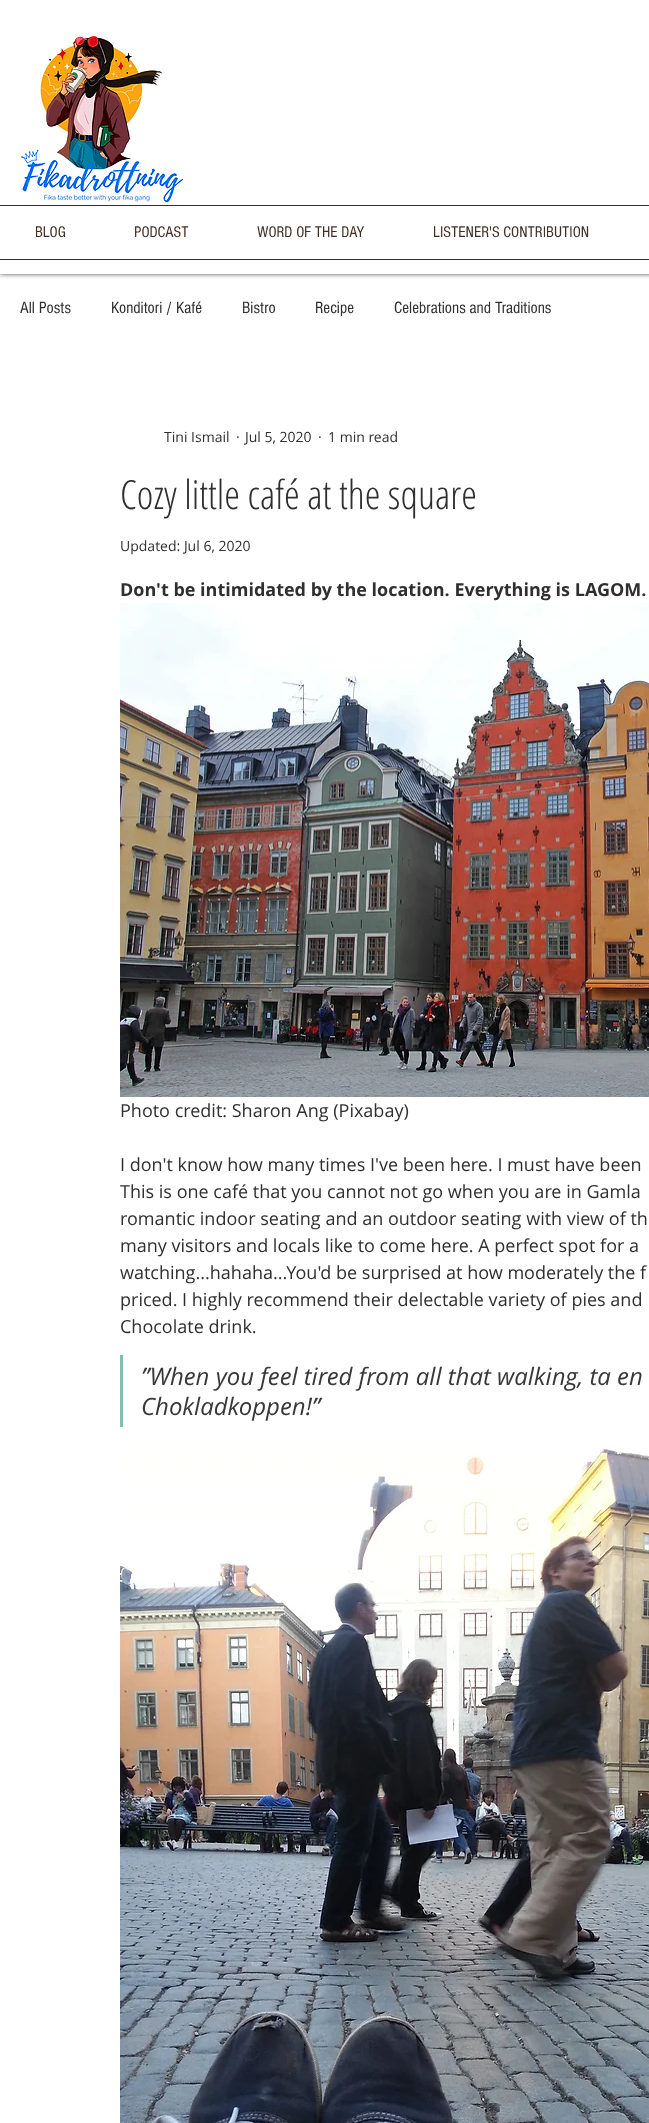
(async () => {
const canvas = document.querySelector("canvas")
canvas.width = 649
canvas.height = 2123
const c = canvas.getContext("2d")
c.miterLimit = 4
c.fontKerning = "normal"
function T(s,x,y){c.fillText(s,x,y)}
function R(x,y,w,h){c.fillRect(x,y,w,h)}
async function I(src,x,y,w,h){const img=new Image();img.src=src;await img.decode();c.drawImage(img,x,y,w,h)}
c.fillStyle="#fff"
R(0,0,649,2123)
c.save()
c.beginPath()
c.rect(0,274,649,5)
c.clip()
c.fillStyle="#000000b3"
c.filter="blur(2.5px)"
c.beginPath()
c.rect(0,0,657,274)
c.fill()
c.filter="none"
c.restore()
await I("1.png",21,36,162,167)
c.fillStyle="#2f2f30"
R(0,205,649,1)
R(0,259,649,1)
c.font="16px 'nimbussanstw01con'"
c.fillStyle="#402e23"
T("BLOG",35,237)
T("PODCAST",134,237)
T("WORD OF THE DAY",257,237)
T("LISTENER'S CONTRIBUTION",433,237)
c.font="17px 'nimbussanstw01con'"
c.fillStyle="#2f2f30"
T("All Posts",20,313)
T("Konditori / Kafé",111,313)
T("Bistro",242,313)
T("Recipe",315,313)
T("Celebrations and Traditions",394,313)
c.font="14px Open Sans"
T("Tini Ismail",164,442)
T("·",236,442)
T("Jul 5, 2020",245,442)
T("·",318,442)
T("1 min read",328,442)
c.font="300 40px Open Sans Condensed"
T("Cozy little café at the square",120,509)
c.font="14px Open Sans"
T("Updated: Jul 6, 2020",120,551)
c.font="bold 18px Open Sans"
T("Don't be intimidated by the location. Everything is LAGOM.",120,596)
await I("2.png",120,603,529,494)
c.font="18px Open Sans"
T("Photo credit: Sharon Ang (Pixabay)",120,1117)
T("I don't know how many times I've been here. I must have been",120,1171)
T("This is one café that you cannot not go when you are in Gamla",120,1198)
T("romantic indoor seating and an outdoor seating with view of th",120,1225)
T("many visitors and locals like to come here. A perfect spot for a",120,1252)
T("watching...hahaha...You'd be surprised at how moderately the f",120,1279)
T("priced. I highly recommend their delectable variety of pies and",120,1306)
T("Chocolate drink.",120,1333)
c.fillStyle="#85bdb3"
R(120,1355,3,72)
c.font="italic 24px Open Sans"
c.fillStyle="#383838"
T("”When you feel tired from all that walking, ta en",141,1385)
T("Chokladkoppen!”",141,1415)
await I("3.png",120,1446,529,677)
})()
